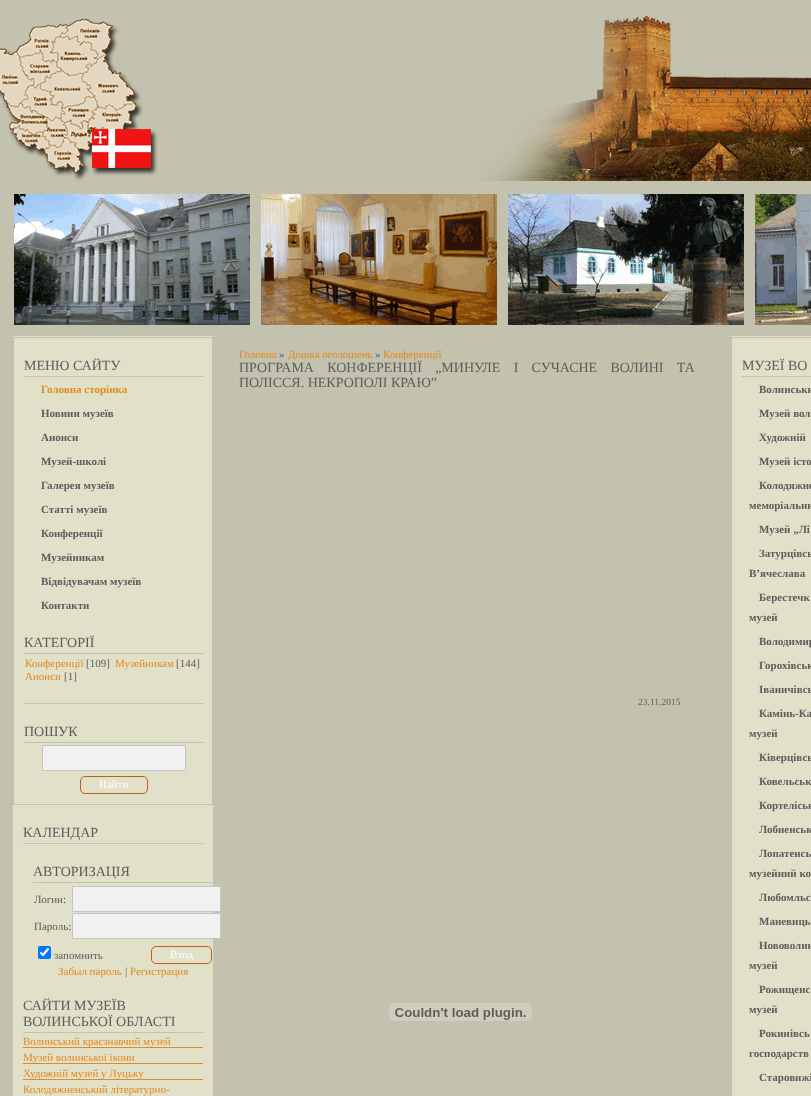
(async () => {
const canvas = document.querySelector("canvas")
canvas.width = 811
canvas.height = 1096
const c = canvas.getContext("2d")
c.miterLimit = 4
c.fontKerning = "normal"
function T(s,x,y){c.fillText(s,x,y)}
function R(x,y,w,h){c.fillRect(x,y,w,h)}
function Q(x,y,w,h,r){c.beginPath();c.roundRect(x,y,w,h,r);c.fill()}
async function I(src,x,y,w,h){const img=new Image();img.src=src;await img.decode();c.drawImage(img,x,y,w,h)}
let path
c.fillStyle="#c3c2ae"
R(0,0,811,1096)
await I("1.png",0,18,158,163)
await I("2.png",479,16,332,165)
await I("3.png",14,194,236,131)
await I("4.png",261,194,236,131)
await I("5.png",508,194,236,131)
await I("6.png",755,194,56,131)
c.fillStyle="#e1e0c9"
R(13,336,200,760)
c.strokeStyle="#c3c2ae"
c.strokeRect(13.5,337.5,199,467)
c.font="14px Liberation Serif"
c.fillStyle="#5d5d5d"
T("МЕНЮ САЙТУ",24,370)
c.fillStyle="#c3c2ae"
R(24,376,180,1)
c.font="bold 11px Liberation Serif"
c.fillStyle="#e5891c"
T("Головна сторінка",41,393)
c.fillStyle="#5d5d5d"
T("Новини музеїв",41,417)
T("Анонси",41,441)
T("Музей-школі",41,465)
T("Галерея музеїв",41,489)
T("Статті музеїв",41,513)
T("Конференції",41,537)
T("Музейникам",41,561)
T("Відвідувачам музеїв",41,585)
T("Контакти",41,609)
c.font="14px Liberation Serif"
T("КАТЕГОРІЇ",24,647)
c.fillStyle="#c3c2ae"
R(24,653,180,1)
c.font="11px Liberation Serif"
c.fillStyle="#e5891c"
T("Конференції",25,667)
c.fillStyle="#5d5d5d"
T("[109]",86,667)
c.fillStyle="#e5891c"
T("Музейникам",115,667)
c.fillStyle="#5d5d5d"
T("[144]",176,667)
c.fillStyle="#e5891c"
T("Анонси",25,680)
c.fillStyle="#5d5d5d"
T("[1]",64,680)
c.fillStyle="#c3c2ae"
R(24,703,180,1)
c.font="14px Liberation Serif"
c.fillStyle="#5d5d5d"
T("ПОШУК",24,736)
c.fillStyle="#c3c2ae"
R(24,742,180,1)
c.fillStyle="#f2f1f1"
c.beginPath()
c.rect(42.5,745.5,143,25)
c.fill()
c.strokeStyle="#c5c5c5"
c.stroke()
c.beginPath()
c.roundRect(80.5,776.5,67,17,4.5)
c.strokeStyle="#c75d11"
c.stroke()
c.font="11px Liberation Serif"
c.fillStyle="#fff"
T("Найти",99,788)
c.font="14px Liberation Serif"
c.fillStyle="#5d5d5d"
T("КАЛЕНДАР",23,837)
c.fillStyle="#c3c2ae"
R(23,843,180,1)
c.fillStyle="#5d5d5d"
T("АВТОРИЗАЦІЯ",33,876)
c.fillStyle="#c3c2ae"
R(33,882,180,1)
c.font="11px Liberation Serif"
c.fillStyle="#5d5d5d"
T("Логин:",34,903)
c.fillStyle="#f2f1f1"
c.beginPath()
c.rect(72.5,886.5,148,25)
c.fill()
c.strokeStyle="#c5c5c5"
c.stroke()
c.fillStyle="#5d5d5d"
T("Пароль:",34,930)
c.fillStyle="#f2f1f1"
c.beginPath()
c.rect(72.5,913.5,148,25)
c.fill()
c.stroke()
c.fillStyle="#0075ff"
Q(38,946,13,13,2)
path = new Path2D("M40.5 952.5l2.5 2.5l5.5-6.5")
c.strokeStyle="#fff"
c.lineWidth=2.1
c.stroke(path)
c.fillStyle="#5d5d5d"
T("запомнить",54,959)
c.beginPath()
c.roundRect(151.5,946.5,60,17,4.5)
c.strokeStyle="#c75d11"
c.lineWidth=1
c.stroke()
c.fillStyle="#fff"
T("Вход",170,958)
c.fillStyle="#e5891c"
T("Забыл пароль",58,975)
c.fillStyle="#5d5d5d"
T("|",125,975)
c.fillStyle="#e5891c"
T("Регистрация",130,975)
c.font="14px Liberation Serif"
c.fillStyle="#5d5d5d"
T("САЙТИ МУЗЕЇВ",23,1010)
T("ВОЛИНСЬКОЇ ОБЛАСТІ",23,1026)
c.fillStyle="#c3c2ae"
R(23,1032,180,1)
c.fillStyle="#e7891c"
R(23,1047,180,1)
c.font="11px Liberation Serif"
c.fillStyle="#e5891c"
T("Волинський краєзнавчий музей",23,1045)
c.fillStyle="#e7891c"
R(23,1063,180,1)
c.fillStyle="#e5891c"
T("Музей волинської ікони",23,1061)
c.fillStyle="#e7891c"
R(23,1079,180,1)
c.fillStyle="#e5891c"
T("Художній музей у Луцьку",23,1077)
T("Колодяжненський літературно-",23,1093)
T("Головна",239,358)
c.fillStyle="#5d5d5d"
T("»",279,358)
c.fillStyle="#e5891c"
T("Дошка оголошень",288,358)
c.fillStyle="#5d5d5d"
T("»",375,358)
c.fillStyle="#e5891c"
T("Конференції",383,358)
c.wordSpacing="9.75px"
c.font="14px Liberation Serif"
c.fillStyle="#5d5d5d"
T("ПРОГРАМА КОНФЕРЕНЦІЇ „МИНУЛЕ І СУЧАСНЕ ВОЛИНІ ТА",239,372)
c.wordSpacing="0px"
T("ПОЛІССЯ. НЕКРОПОЛІ КРАЮ”",239,387)
c.font="9.5px Liberation Serif"
T("23.11.2015",638,705)
await I("7.png",389,1003,143,18)
c.fillStyle="#e1e0c9"
R(731,336,80,760)
c.strokeStyle="#c3c2ae"
c.strokeRect(731.5,337.5,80,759)
c.font="14px Liberation Serif"
c.fillStyle="#5d5d5d"
T("МУЗЕЇ ВО",742,370)
c.fillStyle="#c3c2ae"
R(742,376,69,1)
c.font="bold 11px Liberation Serif"
c.fillStyle="#5d5d5d"
T("Волинськи",759,393)
T("Музей вол",759,417)
T("Художній",759,441)
T("Музей істо",759,465)
T("Колодяжне",759,489)
T("меморіальни",749,509)
T("Музей „Лі",759,533)
T("Затурцівсь",759,557)
T("В’ячеслава",749,577)
T("Берестечк",759,601)
T("музей",749,621)
T("Володимир",759,645)
T("Горохівськ",759,669)
T("Іваничівсь",759,693)
T("Камінь-Ка",759,717)
T("музей",749,737)
T("Ківерцівсь",759,761)
T("Ковельськ",759,785)
T("Кортеліськ",759,809)
T("Лобненськ",759,833)
T("Лопатенсь",759,857)
T("музейний ко",749,877)
T("Любомльс",759,901)
T("Маневиць",759,925)
T("Нововолин",759,949)
T("музей",749,969)
T("Рожищенс",759,993)
T("музей",749,1013)
T("Рокинівсь",759,1037)
T("господарств",749,1057)
T("Старовижі",759,1081)
})()
